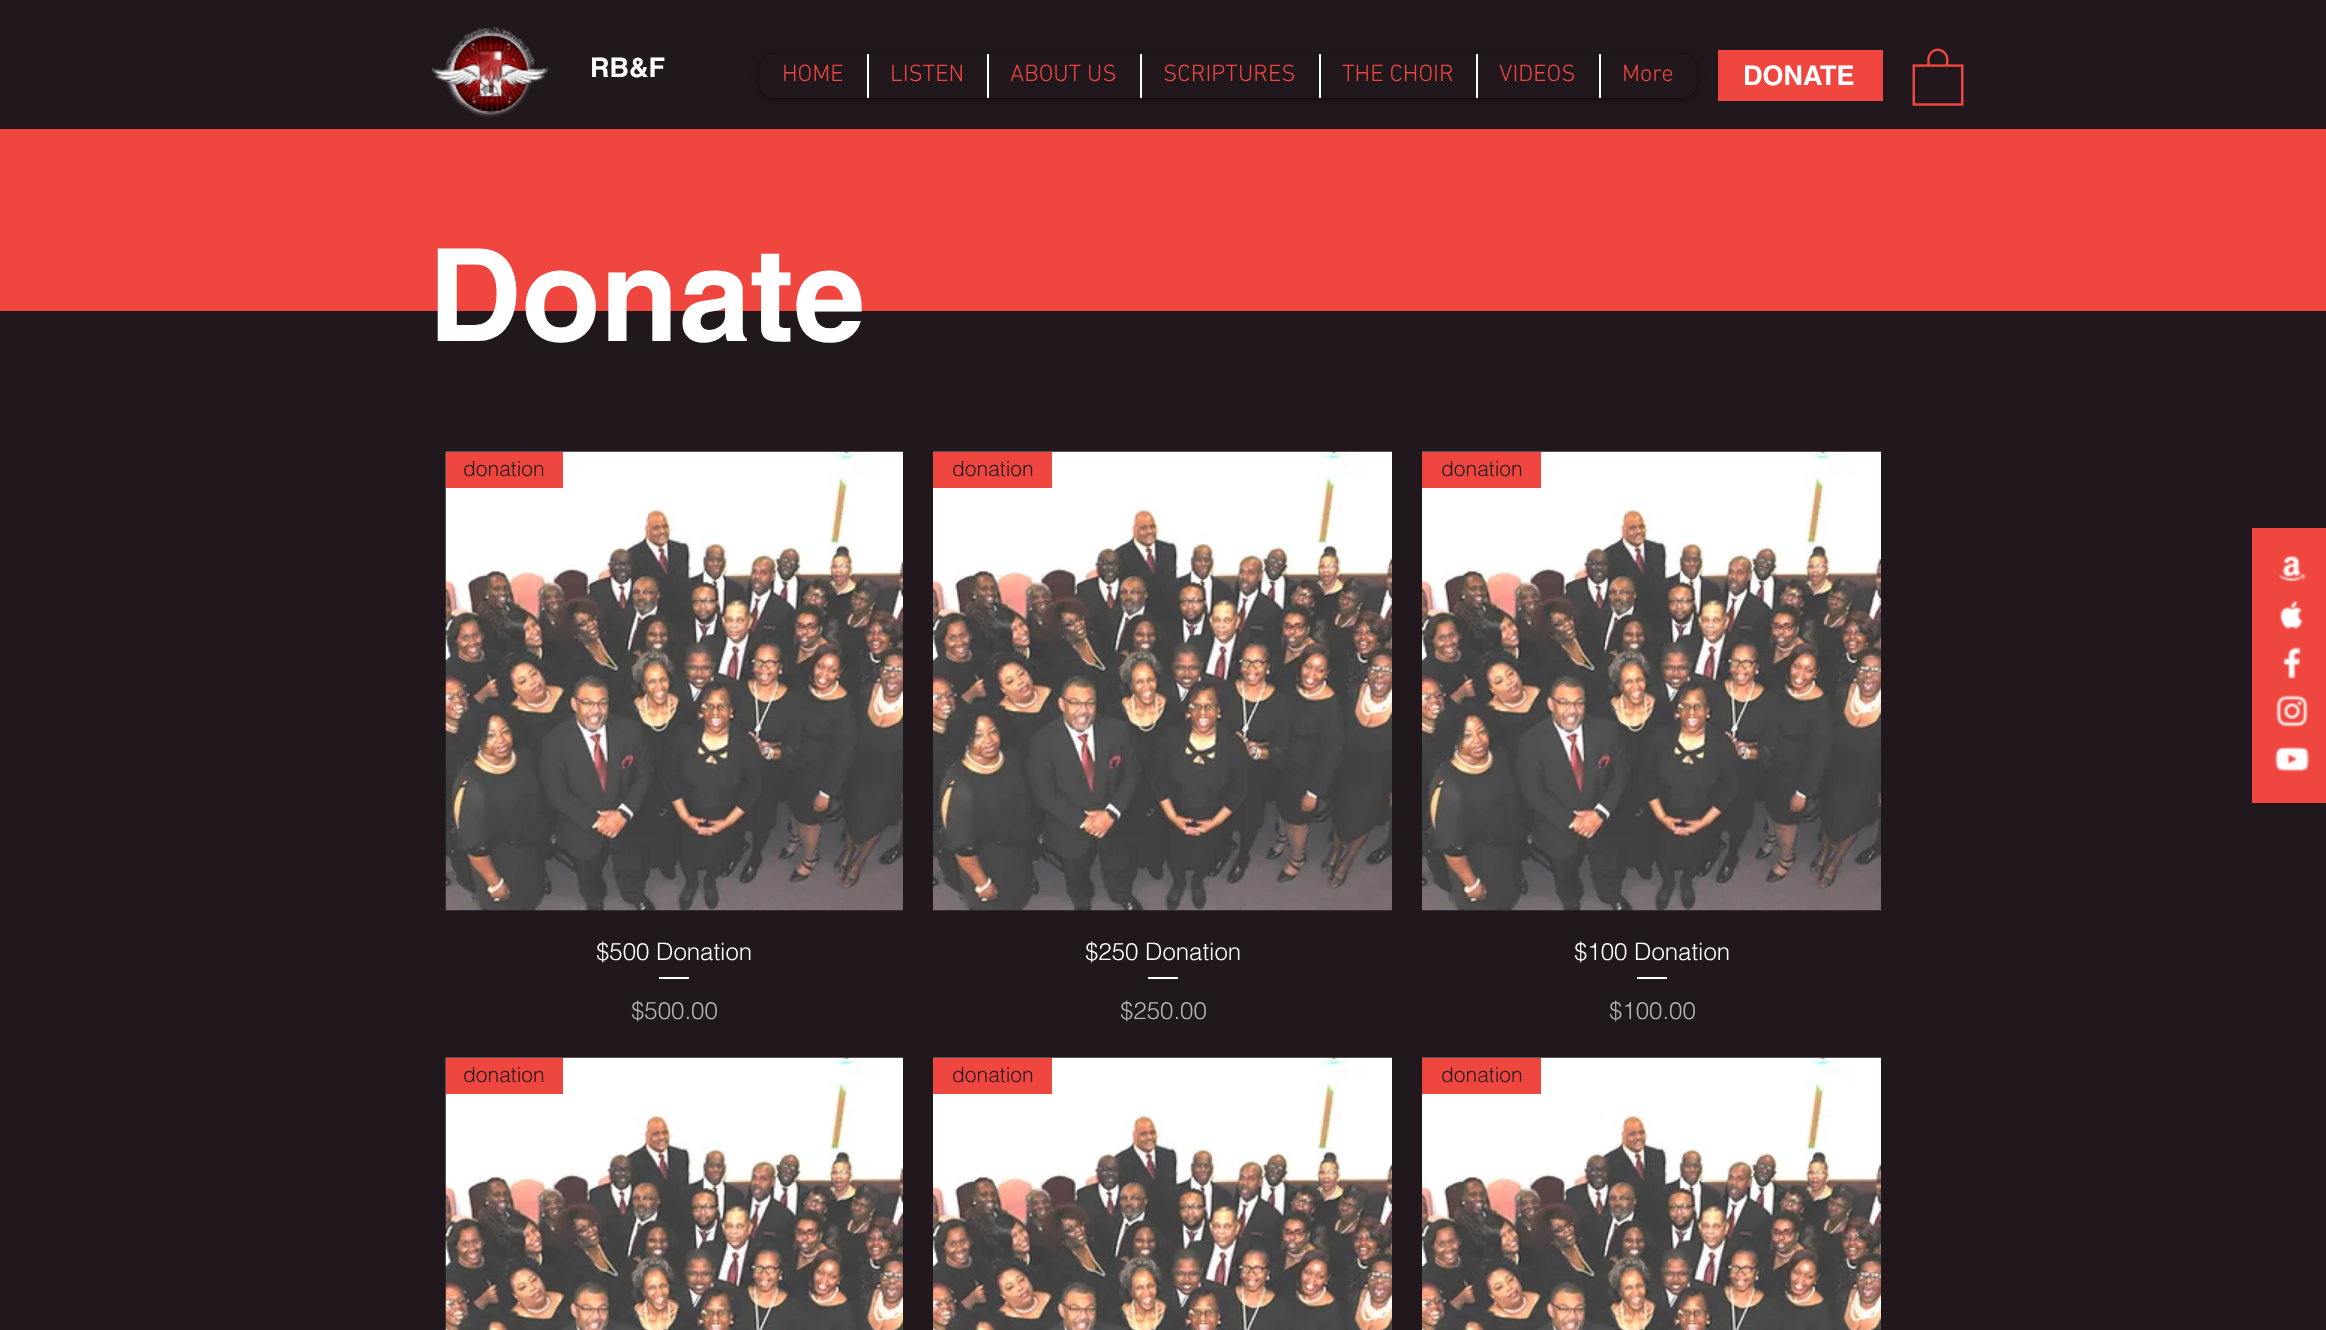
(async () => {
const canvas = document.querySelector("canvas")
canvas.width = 2326
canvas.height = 1330
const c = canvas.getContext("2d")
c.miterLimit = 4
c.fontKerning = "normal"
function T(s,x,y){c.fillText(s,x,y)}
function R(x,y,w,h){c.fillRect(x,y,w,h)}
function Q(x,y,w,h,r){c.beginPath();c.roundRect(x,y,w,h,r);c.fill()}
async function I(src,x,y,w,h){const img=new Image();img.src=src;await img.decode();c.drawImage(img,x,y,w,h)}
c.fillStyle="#21181d"
R(0,0,2326,1330)
await I("1.png",431,26,118,92)
c.font="bold 27px helvetica"
c.fillStyle="#fff"
T("RB&F",590,77)
c.fillStyle="#00000099"
c.filter="blur(3px)"
c.beginPath()
c.roundRect(759,56,938,43,15)
c.fill()
c.filter="none"
c.fillStyle="#21181d"
Q(759,54,938,44,15)
c.font="300 24px 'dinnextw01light'"
c.fillStyle="#ef463f"
T("HOME",782,81)
c.fillStyle="#fff"
R(867,54,2,44)
c.fillStyle="#ef463f"
T("LISTEN",890,81)
c.fillStyle="#fff"
R(987,54,2,44)
c.fillStyle="#ef463f"
T("ABOUT US",1010,81)
c.fillStyle="#fff"
R(1140,54,2,44)
c.fillStyle="#ef463f"
T("SCRIPTURES",1163,81)
c.fillStyle="#fff"
R(1319,54,2,44)
c.fillStyle="#ef463f"
T("THE CHOIR",1342,81)
c.fillStyle="#fff"
R(1476,54,2,44)
c.fillStyle="#ef463f"
T("VIDEOS",1499,81)
c.fillStyle="#fff"
R(1599,54,2,44)
c.fillStyle="#ef463f"
T("More",1622,81)
R(1718,50,165,51)
c.font="bold 27px helvetica"
c.fillStyle="#fff"
T("DONATE",1743,85)
await I("2.png",1912,48,52,58)
c.fillStyle="#ef463f"
R(0,129,2326,182)
c.font="bold 129px helvetica"
c.fillStyle="#fff"
T("Donate",428,341)
await I("3.png",445,451,458,460)
c.fillStyle="#ef463f"
R(446,452,117,36)
c.font="300 21px helvetica"
c.fillStyle="#21181d"
T("donation",463,476)
c.font="300 24px helvetica"
c.fillStyle="#fff"
T("$500 Donation",596,960)
R(659,977,30,2)
c.fillStyle="#b5b5b5"
T("$500.00",631,1019)
await I("4.png",933,451,459,460)
c.fillStyle="#ef463f"
R(933,452,119,36)
c.font="300 21px helvetica"
c.fillStyle="#21181d"
T("donation",952,476)
c.font="300 24px helvetica"
c.fillStyle="#fff"
T("$250 Donation",1085,960)
R(1148,977,30,2)
c.fillStyle="#b5b5b5"
T("$250.00",1120,1019)
await I("4.png",1422,451,459,460)
c.fillStyle="#ef463f"
R(1422,452,119,36)
c.font="300 21px helvetica"
c.fillStyle="#21181d"
T("donation",1441,476)
c.font="300 24px helvetica"
c.fillStyle="#fff"
T("$100 Donation",1574,960)
R(1637,977,30,2)
c.fillStyle="#b5b5b5"
T("$100.00",1609,1019)
await I("5.png",445,1057,458,273)
c.fillStyle="#ef463f"
R(446,1058,117,36)
c.font="300 21px helvetica"
c.fillStyle="#21181d"
T("donation",463,1082)
await I("6.png",933,1057,459,273)
c.fillStyle="#ef463f"
R(933,1058,119,36)
c.fillStyle="#21181d"
T("donation",952,1082)
await I("6.png",1422,1057,459,273)
c.fillStyle="#ef463f"
R(1422,1058,119,36)
c.fillStyle="#21181d"
T("donation",1441,1082)
c.fillStyle="#ef463f"
R(2252,528,74,275)
await I("7.png",2278,555,29,27)
await I("8.png",2279,600,25,30)
await I("9.png",2282,647,20,32)
await I("10.png",2276,695,32,32)
await I("11.png",2274,746,36,26)
})()
